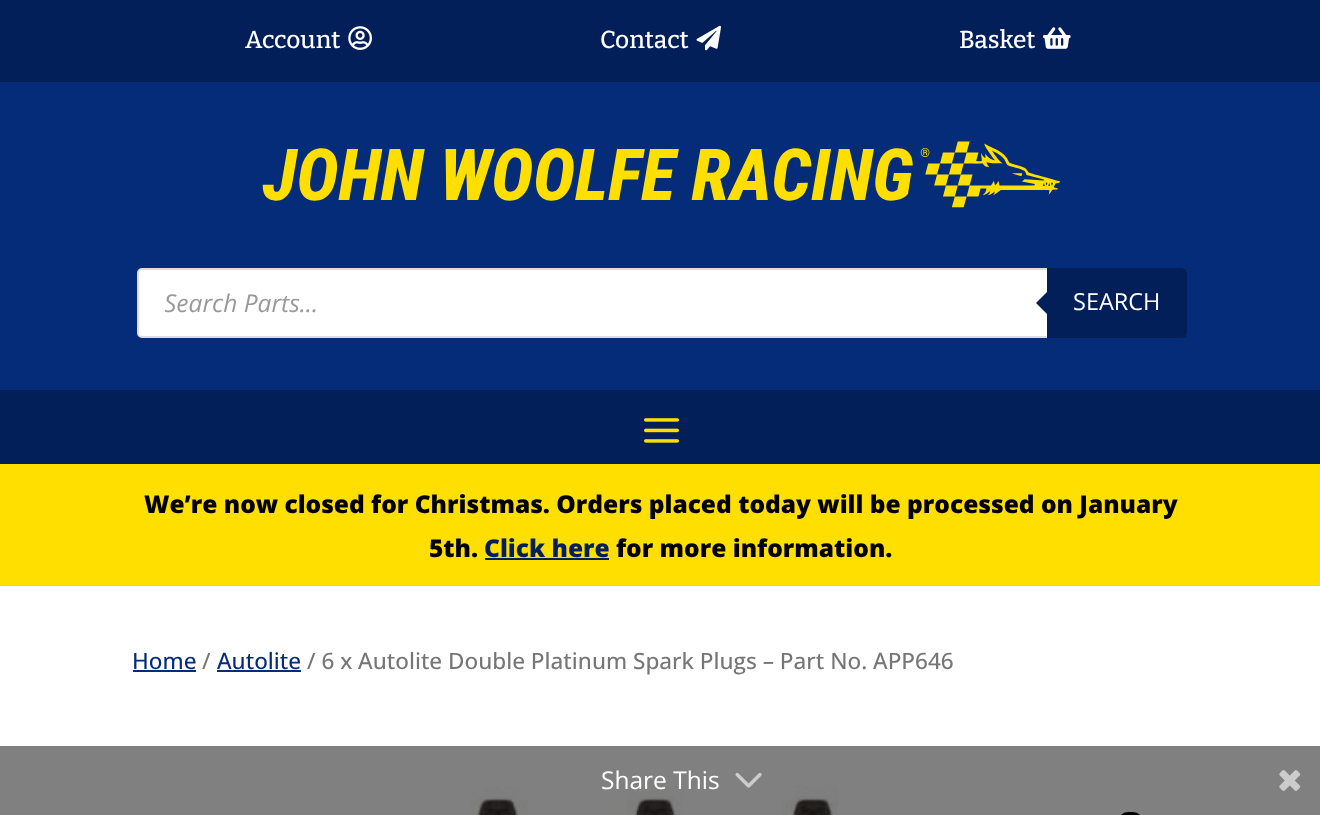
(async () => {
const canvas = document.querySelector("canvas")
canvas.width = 1320
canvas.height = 815
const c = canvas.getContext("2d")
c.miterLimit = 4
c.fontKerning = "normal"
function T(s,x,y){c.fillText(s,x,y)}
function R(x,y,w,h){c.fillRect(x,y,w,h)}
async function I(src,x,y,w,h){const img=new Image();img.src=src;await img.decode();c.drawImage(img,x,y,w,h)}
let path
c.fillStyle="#fff"
R(0,0,1320,815)
c.fillStyle="#808080"
R(0,746,1320,69)
c.fillStyle="#031f59"
R(0,0,1320,82)
c.font="100 24.5px Bitter"
c.fillStyle="#fff"
T("Account",245,48)
await I("1.png",348,26,24,24)
T("Contact",600,48)
await I("2.png",696,25,25,26)
T("Basket",959,48)
await I("3.png",1043,27,28,22)
c.fillStyle="#052c79"
R(0,82,1320,308)
await I("4.png",262,141,798,67)
c.fillStyle="#fff"
c.beginPath()
c.roundRect(138,269,1048,68,4)
c.fill()
c.strokeStyle="#ddd"
c.lineWidth=2
c.stroke()
c.save()
c.beginPath()
c.rect(165,285,994,34)
c.clip()
c.font="italic 24.5px Open Sans"
c.fillStyle="#999"
T("Search Parts...",164,312)
c.restore()
c.fillStyle="#031f59"
c.beginPath()
c.roundRect(1047,268,140,70,[0,4,4,0])
c.fill()
path = new Path2D("M1050 289v28l-14-14z")
c.fill(path)
c.font="23.5px Open Sans"
c.fillStyle="#fff"
T("SEARCH",1073,310)
c.fillStyle="#031f59"
R(0,390,1320,74)
await I("5.png",644,418,35,25)
c.fillStyle="#fedf00"
R(0,464,1320,122)
c.font="800 24.5px Open Sans"
c.fillStyle="#000"
T("We’re now closed for Christmas. Orders placed today will be processed on January",144,513)
T("5th.",429,557)
c.fillStyle="#031f5a"
T("Click here",484,557)
R(485,558,124,2)
c.fillStyle="#000"
T("for more information.",616,557)
c.font="500 22.55px Open Sans"
c.fillStyle="#052c79"
T("Home",132,669)
R(133,670,63,2)
c.fillStyle="#767676"
T("/",202,669)
c.fillStyle="#052c79"
T("Autolite",217,669)
R(217,670,84,2)
c.fillStyle="#767676"
T("/ 6 x Autolite Double Platinum Spark Plugs – Part No. APP646",307,669)
await I("6.png",471,786,367,29)
c.beginPath()
c.roundRect(1120,814,21,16,10.5)
c.strokeStyle="#000"
c.lineWidth=4
c.stroke()
c.font="24.5px Open Sans"
c.fillStyle="#fff"
T("Share This",601,789)
await I("7.png",735,772,27,16)
await I("8.png",1279,770,22,21)
})()
